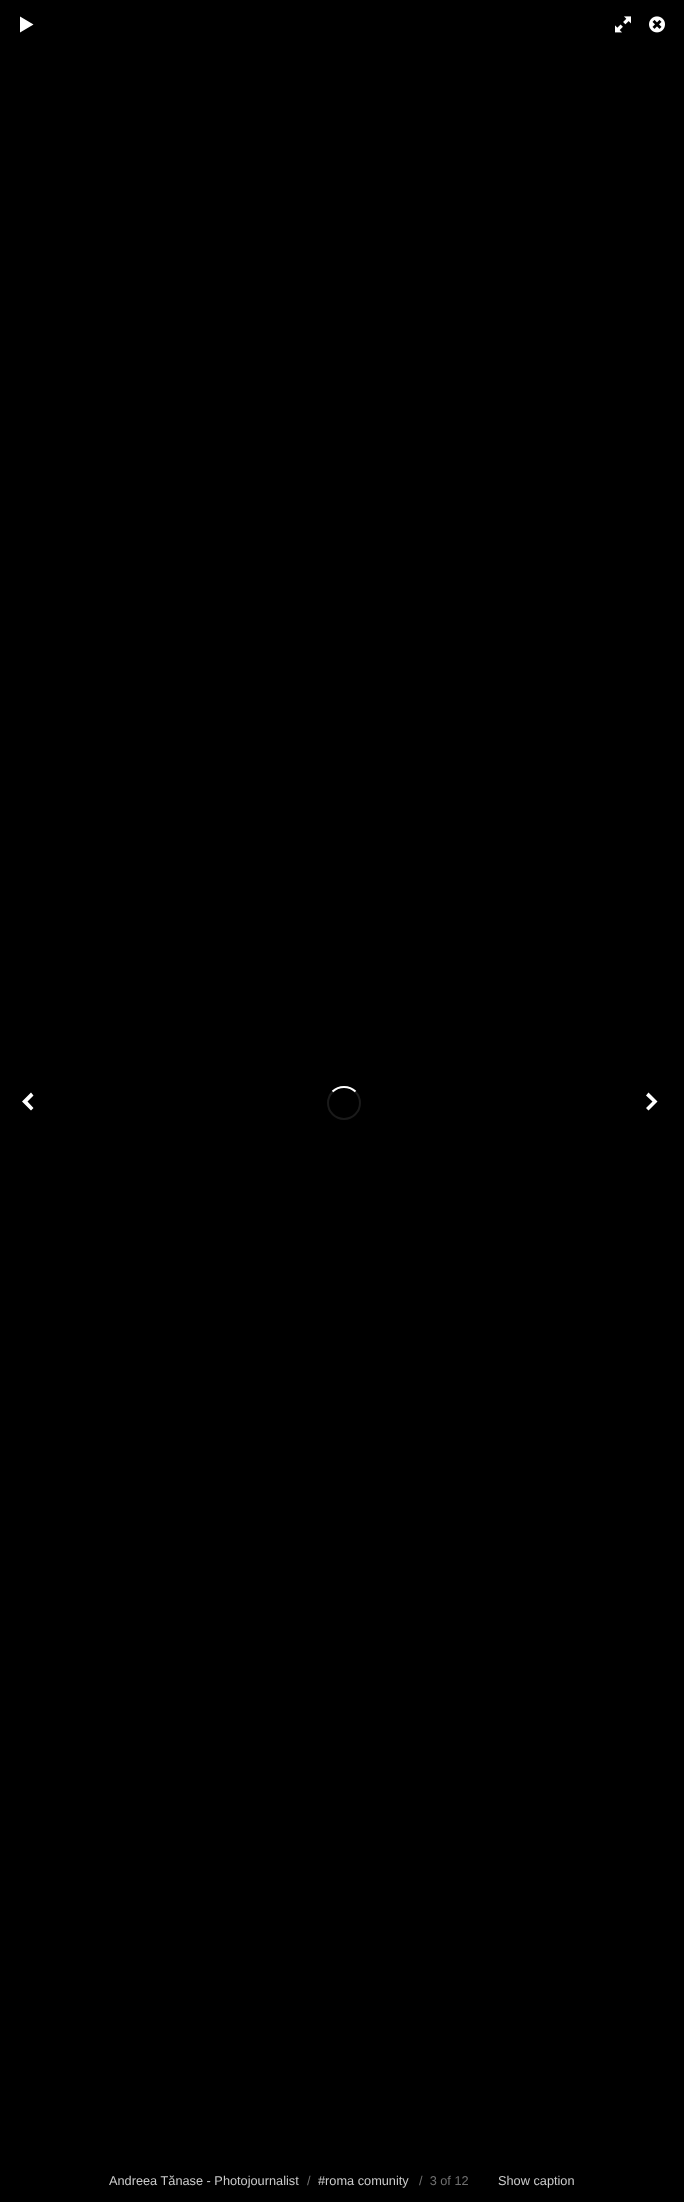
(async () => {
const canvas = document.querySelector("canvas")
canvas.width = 684
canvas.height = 2202
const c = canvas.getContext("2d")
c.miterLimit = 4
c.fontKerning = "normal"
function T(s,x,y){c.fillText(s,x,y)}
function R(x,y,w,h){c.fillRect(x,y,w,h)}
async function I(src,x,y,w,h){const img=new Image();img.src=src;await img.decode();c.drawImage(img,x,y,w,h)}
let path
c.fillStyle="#000"
R(0,0,684,2202)
c.fillStyle="#fff"
path = new Path2D("M20 32.5v-16l13.5 8z")
c.fill(path)
await I("1.png",615,16,16,17)
await I("2.png",649,16,16,17)
path = new Path2D("M22 1101.5l9-9l2.5 3l-6 6l6 6.5l-2.5 2.5z")
c.fill(path)
c.beginPath()
c.arc(344,1103,16,0,7)
c.strokeStyle="#1a1a1a"
c.lineWidth=2
c.stroke()
path = new Path2D("M332.5 1091.5c6.5-6 16.5-6 23 0")
c.strokeStyle="#fff"
c.stroke(path)
path = new Path2D("M646 1108l6.5-6.5l-6.5-6l2.5-3l9 9l-9 9z")
c.fill(path)
c.font="12.75px Liberation Sans"
c.fillStyle="#ccc"
T("Andreea Tănase - Photojournalist",109,2185)
c.fillStyle="#707070"
T("/",307,2185)
c.fillStyle="#ccc"
T("#roma comunity",318,2185)
c.fillStyle="#707070"
T("/  3 of 12",419,2185)
c.fillStyle="#ccc"
T("Show caption",498,2185)
})()
